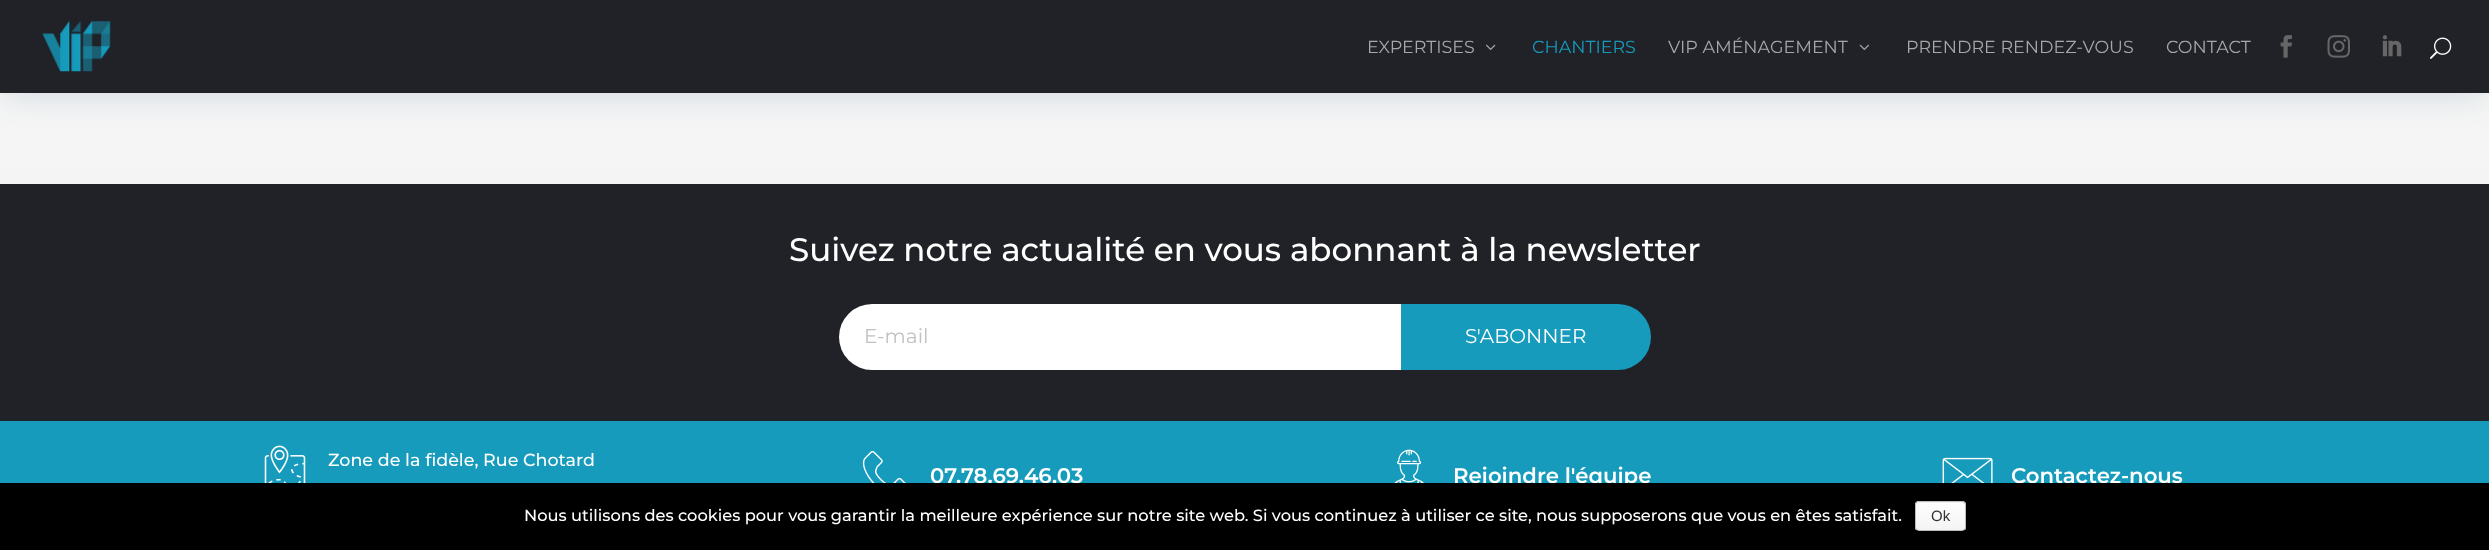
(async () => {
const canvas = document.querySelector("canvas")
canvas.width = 2489
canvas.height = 550
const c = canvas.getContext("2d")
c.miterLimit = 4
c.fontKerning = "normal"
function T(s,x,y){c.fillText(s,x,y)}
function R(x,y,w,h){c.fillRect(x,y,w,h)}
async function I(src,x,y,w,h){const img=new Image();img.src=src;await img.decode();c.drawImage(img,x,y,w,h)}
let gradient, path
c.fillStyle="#212228"
R(0,0,2489,550)
gradient = c.createLinearGradient(1245,184,1245,-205)
gradient.addColorStop(0,"#f4f4f4")
gradient.addColorStop(1,"#fff")
c.fillStyle = gradient
R(0,93,2489,91)
c.save()
path = new Path2D("M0 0h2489v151h-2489zm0 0h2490v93h-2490z")
c.clip(path,"evenodd")
c.fillStyle="#0733542b"
c.filter="blur(19px)"
c.beginPath()
c.rect(0,0,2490,93)
c.fill()
c.filter="none"
c.restore()
await I("1.png",42,21,69,51)
c.font="17.5px Montserrat"
c.fillStyle="#a6a7a9"
T("EXPERTISES",1367,53)
await I("2.png",1486,44,10,6)
c.fillStyle="#169bbc"
T("CHANTIERS",1532,53)
c.fillStyle="#a6a7a9"
T("VIP AMÉNAGEMENT",1668,53)
await I("3.png",1859,44,10,6)
T("PRENDRE RENDEZ-VOUS",1906,53)
T("CONTACT",2166,53)
await I("4.png",2280,35,12,23)
await I("5.png",2327,35,23,23)
await I("6.png",2382,35,20,22)
await I("7.png",2430,37,22,22)
c.font="500 32.5px Montserrat"
c.fillStyle="#fff"
T("Suivez notre actualité en vous abonnant à la newsletter",789,261)
c.beginPath()
c.roundRect(839,304,562,66,[33,0,0,33])
c.fill()
c.font="20px Montserrat"
c.fillStyle="#c1c1c1"
T("E-mail",864,343)
c.fillStyle="#169bbc"
c.beginPath()
c.roundRect(1401,304,250,66,[0,33,33,0])
c.fill()
c.fillStyle="#fff"
T("S'ABONNER",1465,343)
c.fillStyle="#169bbc"
R(0,421,2489,62)
await I("8.png",264,445,42,38)
c.font="500 17.5px Montserrat"
c.fillStyle="#fff"
T("Zone de la fidèle, Rue Chotard",328,466)
await I("9.png",862,450,44,33)
c.font="600 21.25px Montserrat"
T("07.78.69.46.03",930,483)
await I("10.png",1394,449,30,34)
T("Rejoindre l'équipe",1453,483)
await I("11.png",1942,457,51,26)
T("Contactez-nous",2011,483)
c.fillStyle="#000"
R(0,483,2489,67)
c.font="500 16.25px Montserrat"
c.fillStyle="#fff"
T("Nous utilisons des cookies pour vous garantir la meilleure expérience sur notre site web. Si vous continuez à utiliser ce site, nous supposerons que vous en êtes satisfait.",524,521)
c.save()
c.beginPath()
c.roundRect(1915,501,51,30,4)
c.clip()
gradient = c.createLinearGradient(1941,475,1941,503)
gradient.addColorStop(0,"#fefefe")
gradient.addColorStop(1,"#f4f4f4")
c.fillStyle = gradient
R(1915,501,51,2)
gradient = c.createLinearGradient(1941,503,1941,530)
gradient.addColorStop(0,"#fefefe")
gradient.addColorStop(1,"#f4f4f4")
c.fillStyle = gradient
R(1915,503,51,27)
c.restore()
c.beginPath()
c.roundRect(1915.5,501.5,50,29,3.5)
c.strokeStyle="#bbb"
c.stroke()
c.font="15px Liberation Sans"
c.fillStyle="#333"
T("Ok",1931,521)
})()
